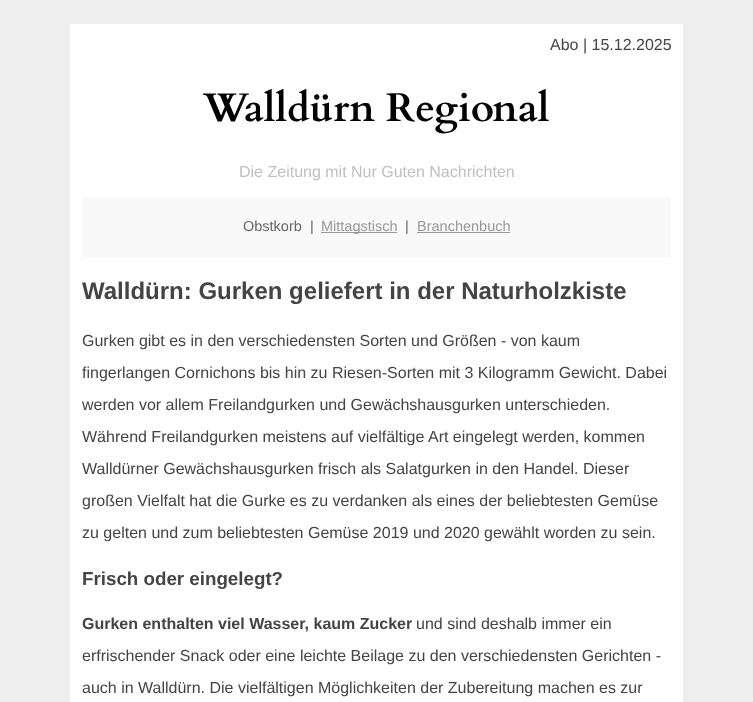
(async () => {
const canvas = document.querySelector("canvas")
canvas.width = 753
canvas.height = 702
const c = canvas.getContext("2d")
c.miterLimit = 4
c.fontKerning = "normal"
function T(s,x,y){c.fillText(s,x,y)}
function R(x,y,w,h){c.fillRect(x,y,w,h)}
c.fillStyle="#eee"
R(0,0,753,702)
c.fillStyle="#fff"
R(70,24,613,678)
c.font="16px Liberation Sans"
c.fillStyle="#444"
T("Abo | 15.12.2025",550,50)
c.font="bold 40px Cardo"
c.fillStyle="#000"
T("Walldürn Regional",203,121)
c.font="16px Liberation Sans"
c.fillStyle="#c0c0c0"
T("Die Zeitung mit Nur Guten Nachrichten",239,177)
c.fillStyle="#f9f9f9"
R(82,197,589,60)
c.font="14.5px Liberation Sans"
c.fillStyle="#666"
T("Obstkorb  |",243,231)
c.fillStyle="#999"
R(321,232,76,1)
T("Mittagstisch",321,231)
c.fillStyle="#666"
T("|",405,231)
c.fillStyle="#999"
T("Branchenbuch",417,231)
R(417,232,93,1)
c.font="bold 24px Liberation Sans"
c.fillStyle="#444"
T("Walldürn: Gurken geliefert in der Naturholzkiste",82,299)
c.font="16px Liberation Sans"
T("Gurken gibt es in den verschiedensten Sorten und Größen - von kaum",82,346)
T("fingerlangen Cornichons bis hin zu Riesen-Sorten mit 3 Kilogramm Gewicht. Dabei",82,378)
T("werden vor allem Freilandgurken und Gewächshausgurken unterschieden.",82,410)
T("Während Freilandgurken meistens auf vielfältige Art eingelegt werden, kommen",82,442)
T("Walldürner Gewächshausgurken frisch als Salatgurken in den Handel. Dieser",82,474)
T("großen Vielfalt hat die Gurke es zu verdanken als eines der beliebtesten Gemüse",82,506)
T("zu gelten und zum beliebtesten Gemüse 2019 und 2020 gewählt worden zu sein.",82,538)
c.font="bold 18.75px Liberation Sans"
T("Frisch oder eingelegt?",82,585)
c.font="bold 16px Liberation Sans"
T("Gurken enthalten viel Wasser, kaum Zucker",82,629)
c.font="16px Liberation Sans"
T("und sind deshalb immer ein",416,629)
T("erfrischender Snack oder eine leichte Beilage zu den verschiedensten Gerichten -",82,661)
T("auch in Walldürn. Die vielfältigen Möglichkeiten der Zubereitung machen es zur",82,693)
})()
